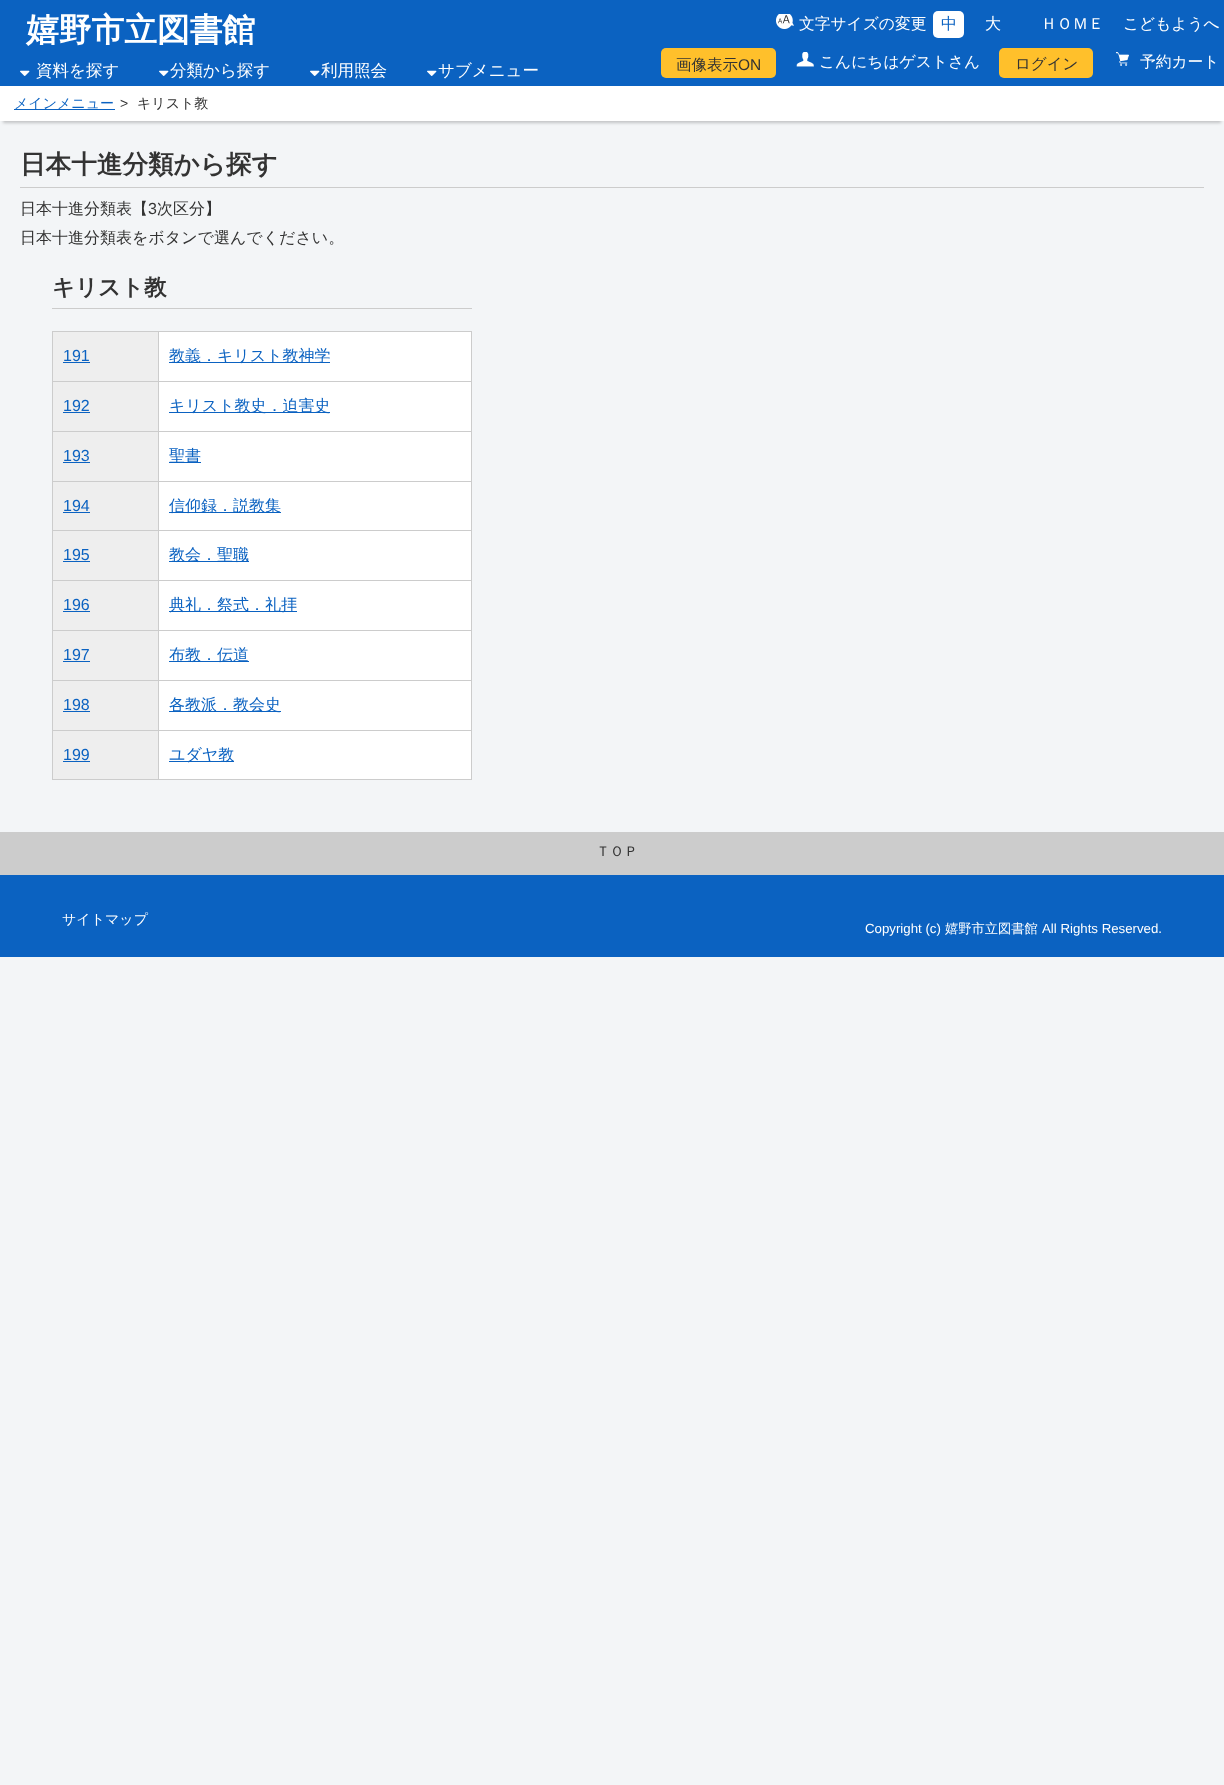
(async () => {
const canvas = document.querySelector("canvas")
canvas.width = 1224
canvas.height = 1785
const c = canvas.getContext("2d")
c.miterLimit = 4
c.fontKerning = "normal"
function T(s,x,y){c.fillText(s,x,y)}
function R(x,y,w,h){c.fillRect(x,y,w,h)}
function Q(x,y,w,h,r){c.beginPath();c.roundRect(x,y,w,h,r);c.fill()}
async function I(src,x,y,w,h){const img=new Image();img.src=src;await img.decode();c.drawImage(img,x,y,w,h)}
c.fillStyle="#f3f5f7"
R(0,0,1224,1785)
c.fillStyle="#0b62c1"
R(0,0,1224,86)
c.font="bold 32.75px WenQuanYi Zen Hei"
c.fillStyle="#fff"
T("嬉野市立図書館",26,41)
await I("1.png",20,70,10,6)
c.font="500 16.5px WenQuanYi Zen Hei"
T("資料を探す",36,76)
await I("1.png",159,70,10,6)
T("分類から探す",170,76)
await I("1.png",310,70,10,6)
T("利用照会",321,76)
await I("1.png",427,70,10,6)
T("サブメニュー",438,76)
await I("2.png",776,14,18,15)
c.font="500 15.75px WenQuanYi Zen Hei"
T("文字サイズの変更",799,29)
Q(933,11,31,27,5)
c.font="500 16px WenQuanYi Zen Hei"
c.fillStyle="#0b62c1"
T("中",941,29)
c.fillStyle="#fff"
T("大",985,29)
c.font="500 15.75px WenQuanYi Zen Hei"
T("ＨＯＭＥ",1041,29)
T("こどもようへ",1123,29)
c.fillStyle="#ffc02b"
Q(661,48,115,30,5)
c.font="500 15.5px WenQuanYi Zen Hei"
c.fillStyle="#333"
T("画像表示",676,70)
c.font="15.5px Liberation Sans"
T("ON",738,70)
await I("3.png",796,52,18,15)
c.font="500 15.75px WenQuanYi Zen Hei"
c.fillStyle="#fff"
T("こんにちはゲストさん",819,67)
c.fillStyle="#ffc02b"
Q(999,48,94,30,5)
c.font="500 15.5px WenQuanYi Zen Hei"
c.fillStyle="#333"
T("ログイン",1015,69)
await I("4.png",1116,52,13,14)
c.font="500 15.75px WenQuanYi Zen Hei"
c.fillStyle="#fff"
T("予約カート",1140,67)
c.fillStyle="#00000033"
c.filter="blur(1.5px)"
c.beginPath()
c.rect(3,94,1218,29)
c.fill()
c.filter="none"
c.fillStyle="#fff"
R(0,86,1224,35)
c.fillStyle="#0b62c1"
R(14,109,101,1)
c.font="500 14px WenQuanYi Zen Hei"
T("メインメニュー",14,108)
c.font="14px Liberation Sans"
c.fillStyle="#333"
T(">",120,108)
c.font="500 14px WenQuanYi Zen Hei"
T("キリスト教",137,108)
c.fillStyle="#ccc"
R(20,187,1184,1)
c.font="bold 25.6px WenQuanYi Zen Hei"
c.fillStyle="#333"
T("日本十進分類から探す",20,173)
c.font="500 16px WenQuanYi Zen Hei"
T("日本十進分類表【",20,214)
c.font="16px Liberation Sans"
T("3",148,214)
c.font="500 16px WenQuanYi Zen Hei"
T("次区分】",157,214)
T("日本十進分類表をボタンで選んでください。",20,243)
c.fillStyle="#ccc"
R(52,308,420,1)
c.font="bold 22.5px WenQuanYi Zen Hei"
c.fillStyle="#333"
T("キリスト教",52,295)
c.fillStyle="#eee"
R(53,332,105,447)
c.fillStyle="#ccc"
R(471,331,1,449)
R(52,779,420,1)
R(52,331,1,449)
c.font="16px Liberation Sans"
c.fillStyle="#0b62c1"
T("191",63,361)
R(63,362,27,1)
c.fillStyle="#fff"
R(159,332,312,49)
c.fillStyle="#ccc"
R(53,331,418,1)
R(158,331,1,50)
c.fillStyle="#0b62c1"
R(169,362,161,1)
c.font="500 16px WenQuanYi Zen Hei"
T("教義．キリスト教神学",169,361)
c.font="16px Liberation Sans"
T("192",63,411)
R(63,412,27,1)
c.fillStyle="#fff"
R(159,382,312,49)
c.fillStyle="#ccc"
R(53,381,418,1)
R(158,381,1,50)
c.fillStyle="#0b62c1"
R(169,412,161,1)
c.font="500 16px WenQuanYi Zen Hei"
T("キリスト教史．迫害史",169,411)
c.font="16px Liberation Sans"
T("193",63,461)
R(63,462,27,1)
c.fillStyle="#fff"
R(159,432,312,49)
c.fillStyle="#ccc"
R(53,431,418,1)
R(158,431,1,50)
c.fillStyle="#0b62c1"
R(169,462,32,1)
c.font="500 16px WenQuanYi Zen Hei"
T("聖書",169,461)
c.font="16px Liberation Sans"
T("194",63,511)
R(63,512,27,1)
c.fillStyle="#fff"
R(159,482,312,48)
c.fillStyle="#ccc"
R(53,481,418,1)
R(158,481,1,49)
c.fillStyle="#0b62c1"
R(169,512,112,1)
c.font="500 16px WenQuanYi Zen Hei"
T("信仰録．説教集",169,511)
c.font="16px Liberation Sans"
T("195",63,560)
R(63,561,27,1)
c.fillStyle="#fff"
R(159,531,312,49)
c.fillStyle="#ccc"
R(53,530,418,1)
R(158,530,1,50)
c.fillStyle="#0b62c1"
R(169,561,80,1)
c.font="500 16px WenQuanYi Zen Hei"
T("教会．聖職",169,560)
c.font="16px Liberation Sans"
T("196",63,610)
R(63,611,27,1)
c.fillStyle="#fff"
R(159,581,312,49)
c.fillStyle="#ccc"
R(53,580,418,1)
R(158,580,1,50)
c.fillStyle="#0b62c1"
R(169,611,128,1)
c.font="500 16px WenQuanYi Zen Hei"
T("典礼．祭式．礼拝",169,610)
c.font="16px Liberation Sans"
T("197",63,660)
R(63,661,27,1)
c.fillStyle="#fff"
R(159,631,312,49)
c.fillStyle="#ccc"
R(53,630,418,1)
R(158,630,1,50)
c.fillStyle="#0b62c1"
R(169,661,80,1)
c.font="500 16px WenQuanYi Zen Hei"
T("布教．伝道",169,660)
c.font="16px Liberation Sans"
T("198",63,710)
R(63,711,27,1)
c.fillStyle="#fff"
R(159,681,312,49)
c.fillStyle="#ccc"
R(53,680,418,1)
R(158,680,1,50)
c.fillStyle="#0b62c1"
R(169,711,112,1)
c.font="500 16px WenQuanYi Zen Hei"
T("各教派．教会史",169,710)
c.font="16px Liberation Sans"
T("199",63,760)
R(63,761,27,1)
c.fillStyle="#fff"
R(159,731,312,48)
c.fillStyle="#ccc"
R(53,730,418,1)
R(158,730,1,49)
c.fillStyle="#0b62c1"
R(169,761,65,1)
c.font="500 16px WenQuanYi Zen Hei"
T("ユダヤ教",169,760)
c.fillStyle="#ccc"
R(0,832,1224,43)
c.font="500 14px WenQuanYi Zen Hei"
c.fillStyle="#333"
T("ＴＯＰ",596,856)
c.fillStyle="#0b62c1"
R(0,875,1224,82)
c.fillStyle="#fff"
T("サイトマップ",62,924)
c.font="13.25px Liberation Sans"
T("Copyright (c)",865,933)
c.font="500 13.25px WenQuanYi Zen Hei"
T("嬉野市立図書館",945,933)
c.font="13.25px Liberation Sans"
T("All Rights Reserved.",1042,933)
})()
